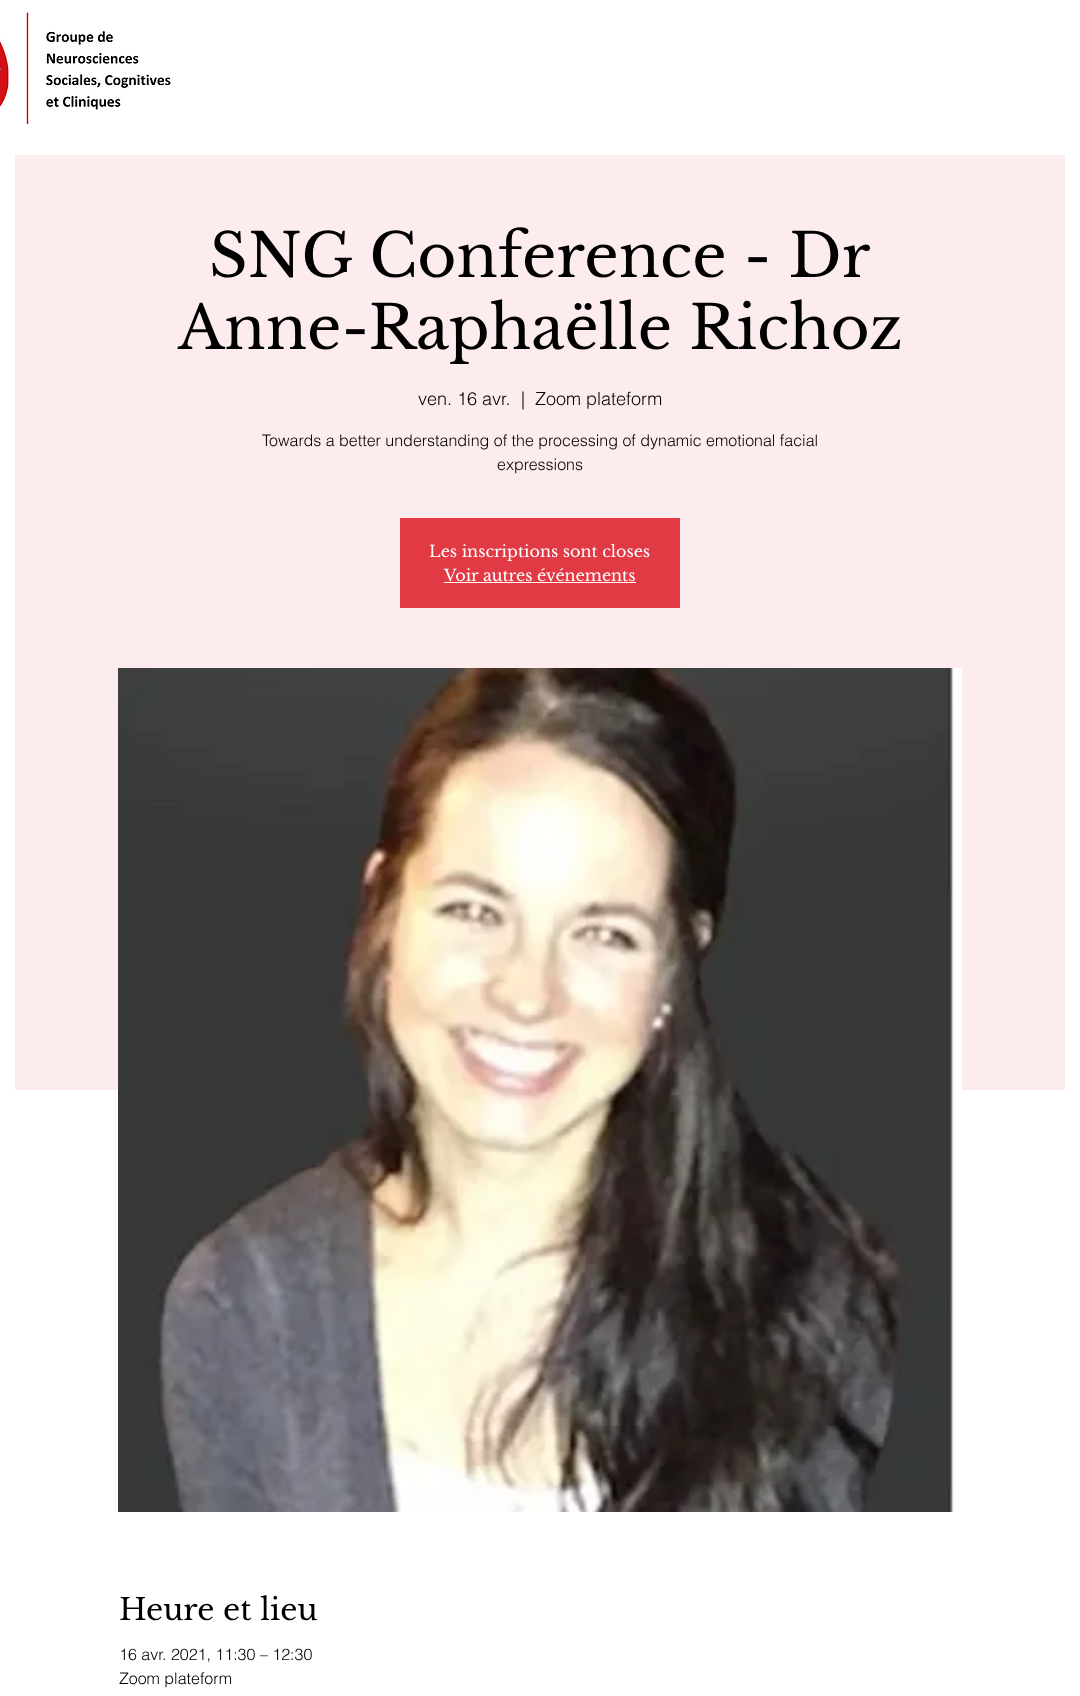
(async () => {
const canvas = document.querySelector("canvas")
canvas.width = 1080
canvas.height = 1696
const c = canvas.getContext("2d")
c.miterLimit = 4
c.fontKerning = "normal"
function T(s,x,y){c.fillText(s,x,y)}
function R(x,y,w,h){c.fillRect(x,y,w,h)}
async function I(src,x,y,w,h){const img=new Image();img.src=src;await img.decode();c.drawImage(img,x,y,w,h)}
c.fillStyle="#fff"
R(0,0,1080,1696)
await I("1.png",0,12,173,112)
c.fillStyle="#fdeced"
R(15,155,1050,935)
c.font="60px Libre Baskerville"
c.fillStyle="#000"
T("SNG Conference - Dr",209,277)
T("Anne-Raphaëlle Richoz",178,349)
c.font="300 18px helvetica"
T("ven. 16 avr.",418,405)
T("|",521,405)
T("Zoom plateform",535,405)
c.font="300 16px helvetica"
T("Towards a better understanding of the processing of dynamic emotional facial",262,446)
T("expressions",497,470)
c.fillStyle="#e13a44"
R(400,518,280,90)
c.font="16px Libre Baskerville"
c.fillStyle="#fff"
T("Les inscriptions sont closes",429,557)
T("Voir autres événements",444,581)
R(444,582,192,1)
await I("2.png",118,668,844,844)
c.font="30px Libre Baskerville"
c.fillStyle="#000"
T("Heure et lieu",119,1620)
c.font="300 16px helvetica"
T("16 avr. 2021, 11:30 – 12:30",119,1660)
T("Zoom plateform",119,1684)
})()
